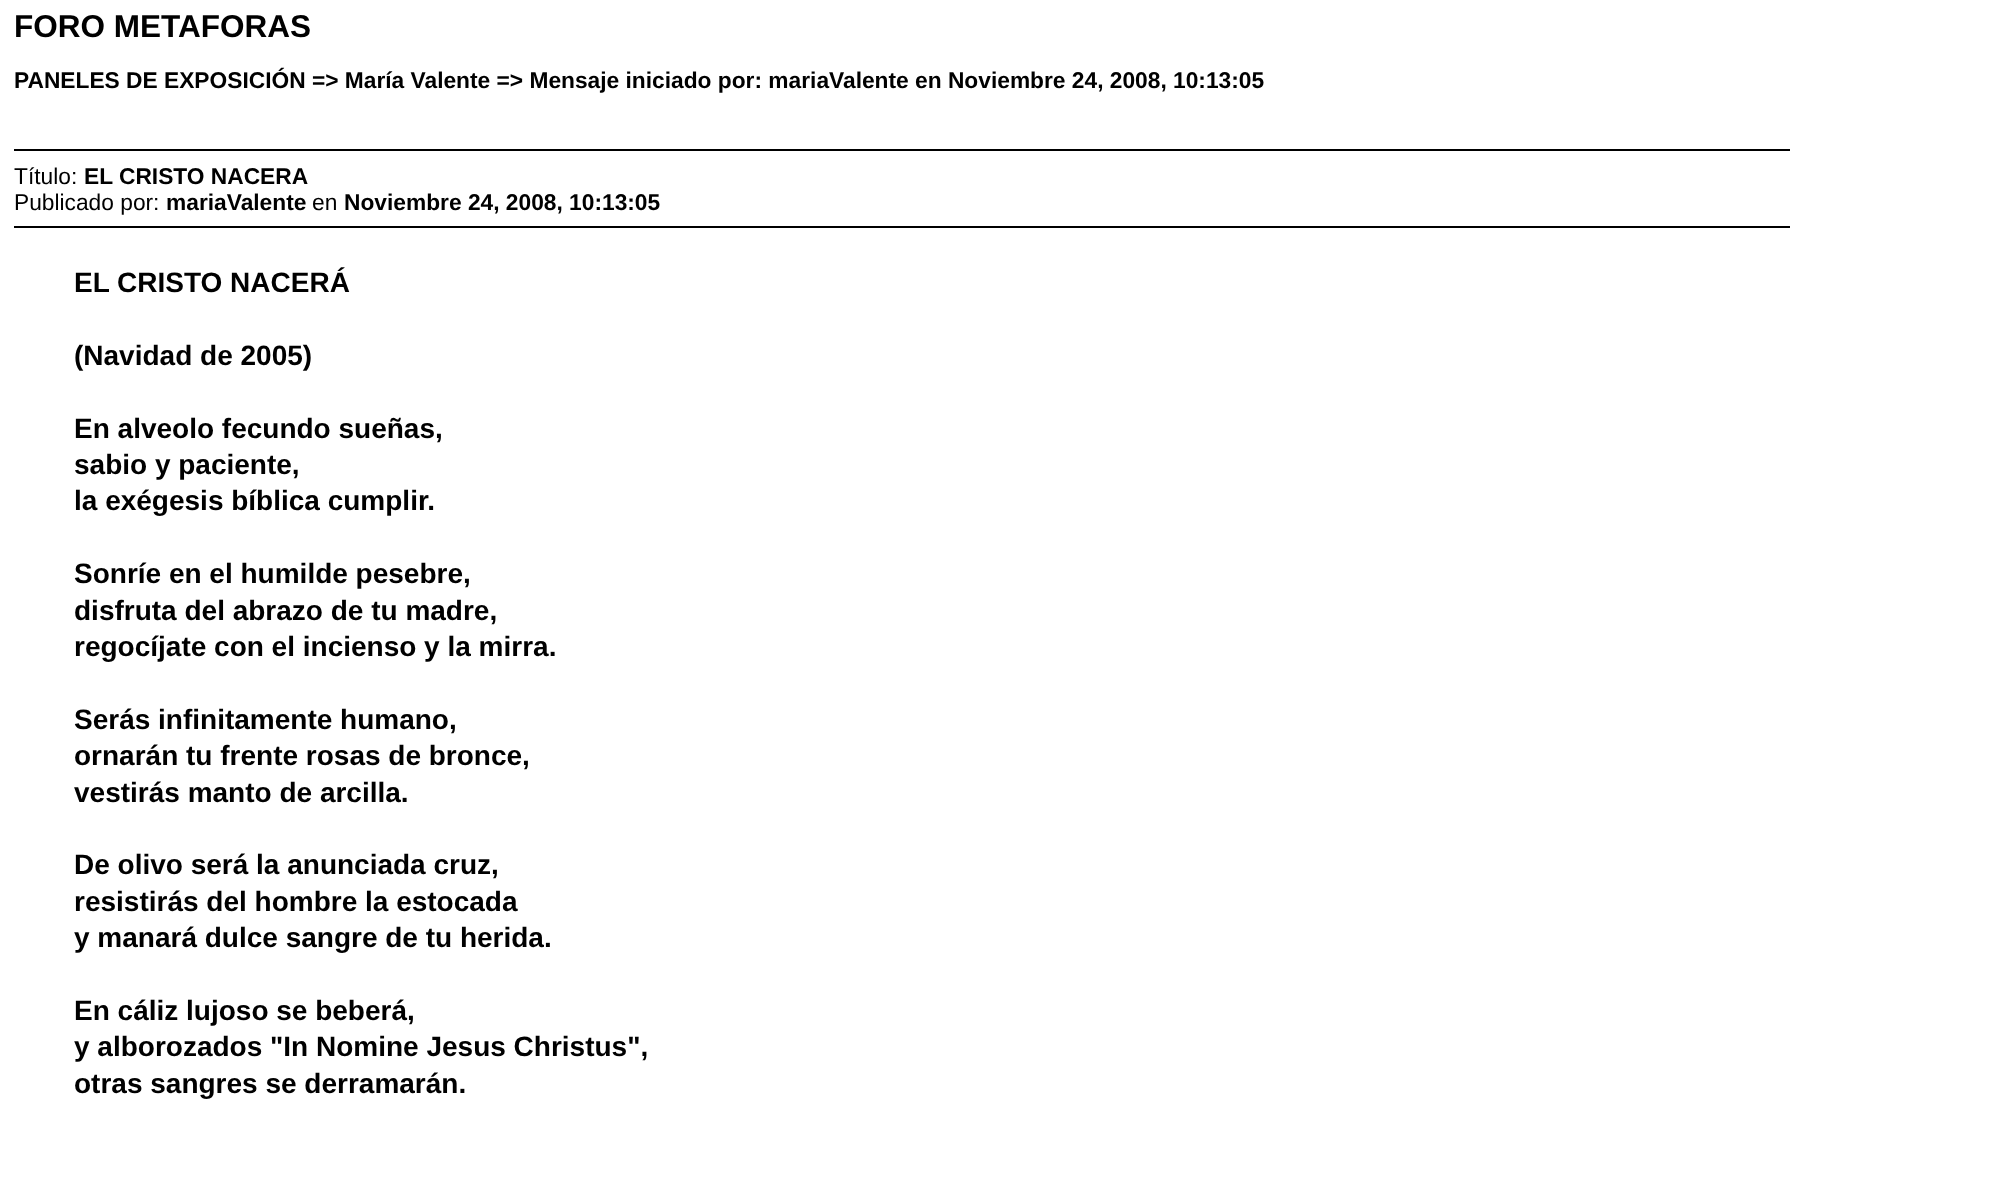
(async () => {
const canvas = document.querySelector("canvas")
canvas.width = 2001
canvas.height = 1182
const c = canvas.getContext("2d")
c.miterLimit = 4
c.fontKerning = "normal"
function T(s,x,y){c.fillText(s,x,y)}
function R(x,y,w,h){c.fillRect(x,y,w,h)}
c.fillStyle="#fff"
R(0,0,2001,1182)
c.font="bold 31.5px Liberation Sans"
c.fillStyle="#000"
T("FORO METAFORAS",14,37)
c.font="bold 22.75px Liberation Sans"
T("PANELES DE EXPOSICIÓN => María Valente => Mensaje iniciado por: mariaValente en Noviembre 24, 2008, 10:13:05",14,88)
R(14,149,1776,2)
c.font="22.75px Liberation Sans"
T("Título:",14,184)
c.font="bold 22.75px Liberation Sans"
T("EL CRISTO NACERA",84,184)
c.font="22.75px Liberation Sans"
T("Publicado por:",14,210)
c.font="bold 22.75px Liberation Sans"
T("mariaValente",166,210)
c.font="22.75px Liberation Sans"
T("en",312,210)
c.font="bold 22.75px Liberation Sans"
T("Noviembre 24, 2008, 10:13:05",344,210)
R(14,226,1776,2)
c.font="bold 28px Liberation Sans"
T("EL CRISTO NACERÁ",74,292)
T("(Navidad de 2005)",74,365)
T("En alveolo fecundo sueñas,",74,438)
T("sabio y paciente,",74,474)
T("la exégesis bíblica cumplir.",74,510)
T("Sonríe en el humilde pesebre,",74,583)
T("disfruta del abrazo de tu madre,",74,620)
T("regocíjate con el incienso y la mirra.",74,656)
T("Serás infinitamente humano,",74,729)
T("ornarán tu frente rosas de bronce,",74,765)
T("vestirás manto de arcilla.",74,802)
T("De olivo será la anunciada cruz,",74,874)
T("resistirás del hombre la estocada",74,911)
T("y manará dulce sangre de tu herida.",74,947)
T("En cáliz lujoso se beberá,",74,1020)
T("y alborozados \"In Nomine Jesus Christus\",",74,1056)
T("otras sangres se derramarán.",74,1093)
})()
